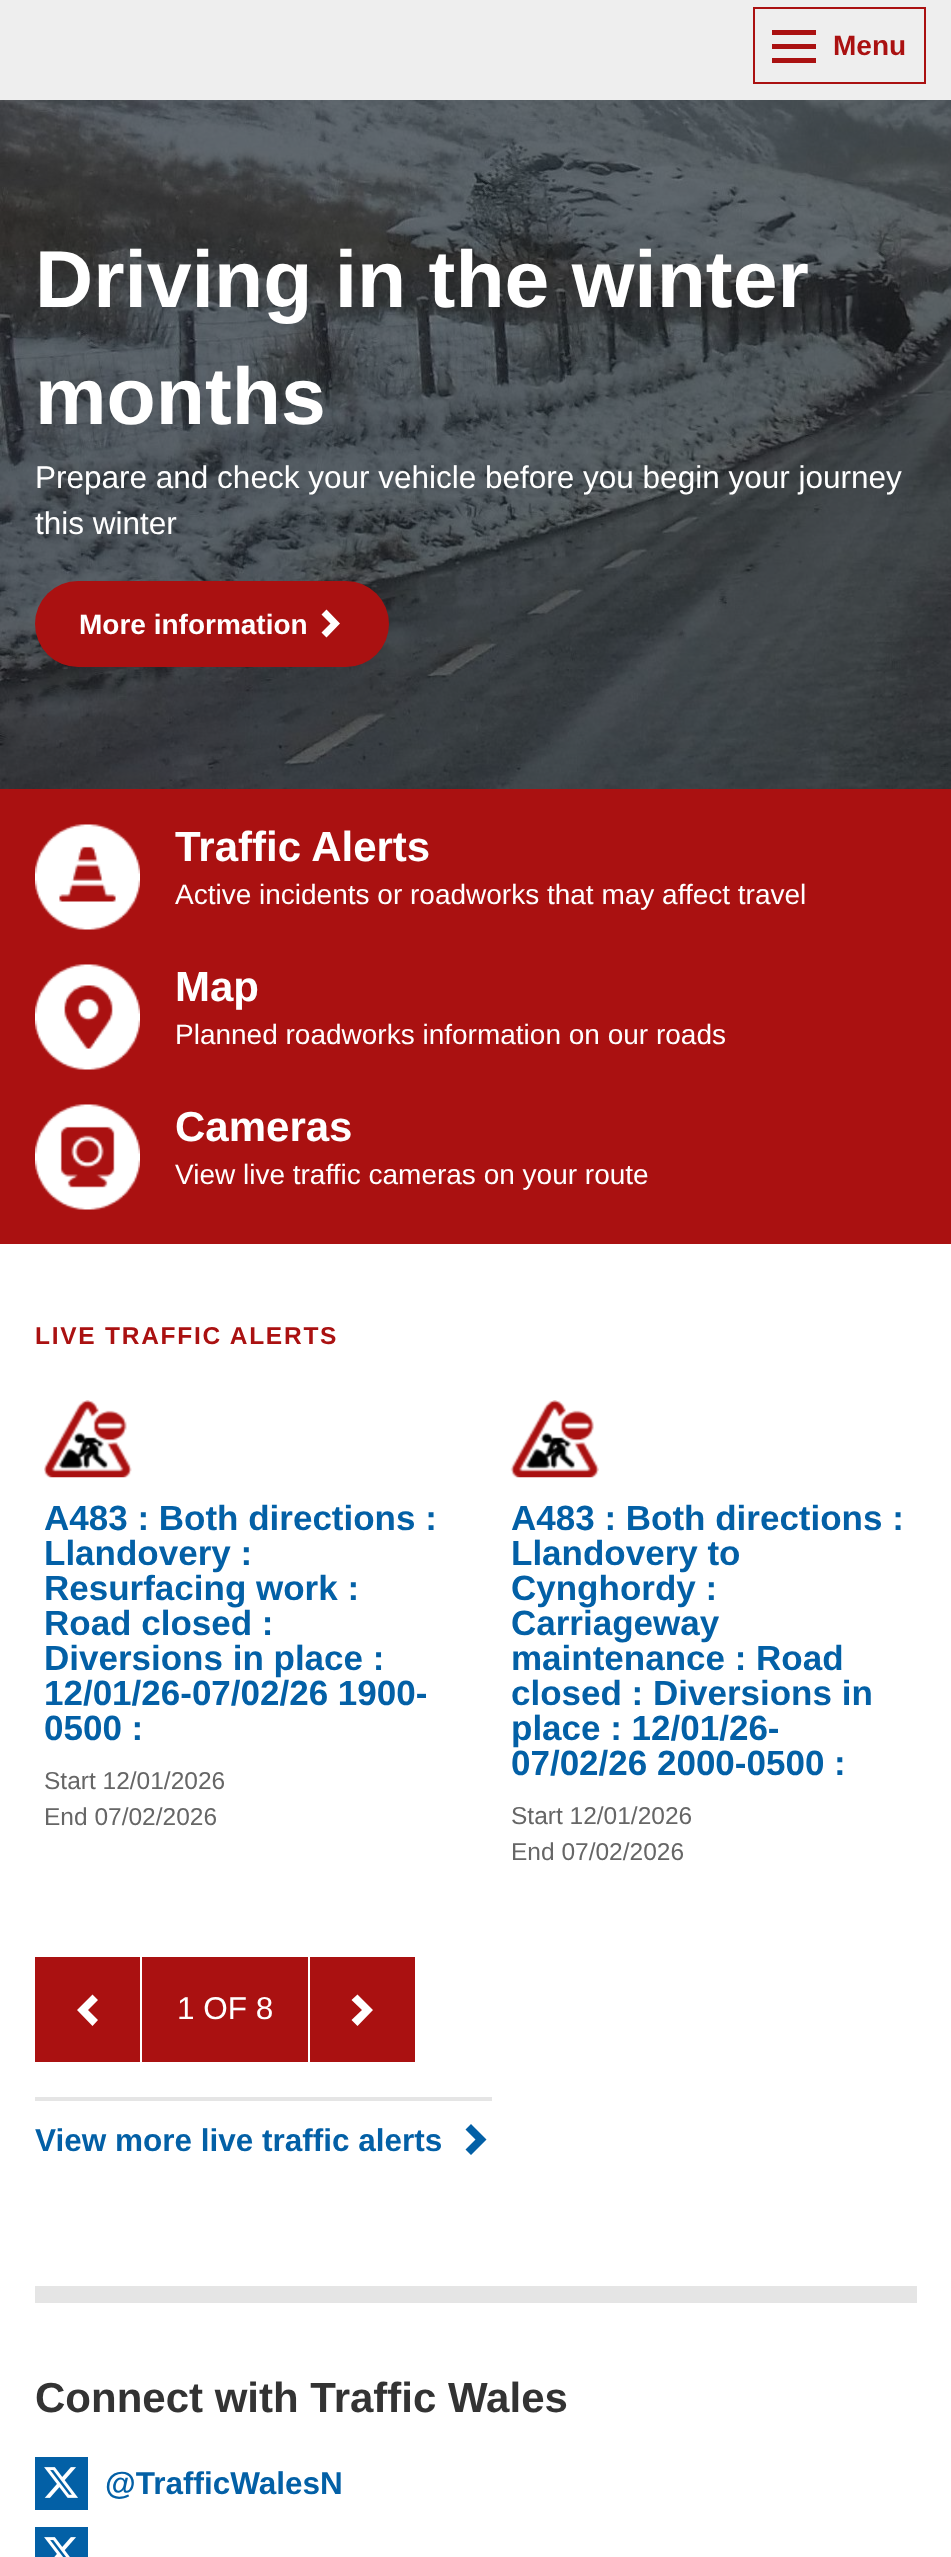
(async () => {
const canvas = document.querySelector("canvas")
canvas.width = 951
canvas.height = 2557
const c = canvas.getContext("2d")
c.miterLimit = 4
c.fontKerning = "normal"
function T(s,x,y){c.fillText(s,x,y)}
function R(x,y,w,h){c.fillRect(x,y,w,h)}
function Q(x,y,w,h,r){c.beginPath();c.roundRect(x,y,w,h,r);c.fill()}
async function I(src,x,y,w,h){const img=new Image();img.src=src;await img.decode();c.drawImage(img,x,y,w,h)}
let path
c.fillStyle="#fff"
R(0,0,951,2557)
c.fillStyle="#eee"
R(0,0,951,100)
c.strokeStyle="#a11"
c.lineWidth=2
c.strokeRect(754,8,171,75)
c.fillStyle="#a11"
R(772,44,44,5)
R(772,30,44,5)
R(772,58,44,5)
c.font="bold 28px Liberation Sans"
T("Menu",833,55)
await I("1.png",0,100,951,689)
c.font="bold 80.5px Liberation Sans"
c.fillStyle="#fff"
T("Driving in the winter",35,307)
T("months",35,424)
c.font="31.5px Liberation Sans"
T("Prepare and check your vehicle before you begin your journey",35,488)
T("this winter",35,534)
c.fillStyle="#a11"
Q(35,581,354,86,43)
c.font="bold 28px Liberation Sans"
c.fillStyle="#fff"
T("More information",79,634)
path = new Path2D("M340 623.5l-13.5 14l-5-5l9-9l-9-9l5-5z")
c.fill(path)
c.fillStyle="#a11"
R(0,789,951,455)
await I("2.png",35,824,105,106)
c.font="bold 42px Liberation Sans"
c.fillStyle="#fff"
T("Traffic Alerts",175,861)
c.font="28px Liberation Sans"
T("Active incidents or roadworks that may affect travel",175,904)
await I("3.png",35,964,105,106)
c.font="bold 42px Liberation Sans"
T("Map",175,1001)
c.font="28px Liberation Sans"
T("Planned roadworks information on our roads",175,1044)
await I("4.png",35,1104,105,106)
c.font="bold 42px Liberation Sans"
T("Cameras",175,1141)
c.font="28px Liberation Sans"
T("View live traffic cameras on your route",175,1184)
c.letterSpacing="1.75px"
c.font="bold 24.5px Liberation Sans"
c.fillStyle="#a11"
T("LIVE TRAFFIC ALERTS",35,1344)
await I("5.png",44,1400,88,78)
c.letterSpacing="0px"
c.font="bold 35px Liberation Sans"
c.fillStyle="#0360a6"
T("A483 : Both directions :",44,1530)
T("Llandovery :",44,1565)
T("Resurfacing work :",44,1600)
T("Road closed :",44,1635)
T("Diversions in place :",44,1670)
T("12/01/26-07/02/26 1900-",44,1705)
T("0500 :",44,1740)
c.font="24.5px Liberation Sans"
c.fillStyle="#666"
T("Start 12/01/2026",44,1789)
T("End 07/02/2026",44,1825)
await I("6.png",510,1400,89,78)
c.font="bold 35px Liberation Sans"
c.fillStyle="#0360a6"
T("A483 : Both directions :",511,1530)
T("Llandovery to",511,1565)
T("Cynghordy :",511,1600)
T("Carriageway",511,1635)
T("maintenance : Road",511,1670)
T("closed : Diversions in",511,1705)
T("place : 12/01/26-",511,1740)
T("07/02/26 2000-0500 :",511,1775)
c.font="24.5px Liberation Sans"
c.fillStyle="#666"
T("Start 12/01/2026",511,1824)
T("End 07/02/2026",511,1860)
c.fillStyle="#a11"
R(35,1957,380,105)
c.fillStyle="#fff"
path = new Path2D("M77 2010l15.5-15.5l5.5 5.5l-10 10l10 10l-5.5 6z")
c.fill(path)
R(308,1957,2,105)
R(140,1957,2,105)
c.font="31.5px Liberation Sans"
T("1 OF 8",177,2019)
path = new Path2D("M373 2010l-15.5 16l-6-6l10.5-10l-10.5-10l6-5.5z")
c.fill(path)
c.fillStyle="#e5e5e5"
R(35,2097,457,4)
c.font="bold 31.5px Liberation Sans"
c.fillStyle="#0360a6"
T("View more live traffic alerts",35,2151)
path = new Path2D("M486.5 2139.5l-15.5 15.5l-5.5-5.5l10-10l-10-10l5.5-5.5z")
c.fill(path)
c.fillStyle="#e5e5e5"
R(35,2286,882,17)
c.font="bold 42px Liberation Sans"
c.fillStyle="#333"
T("Connect with Traffic Wales",35,2412)
c.fillStyle="#0360a6"
R(35,2457,53,53)
await I("7.png",44,2467,34,31)
c.font="bold 31.5px Liberation Sans"
T("@TrafficWalesN",105,2494)
R(35,2527,53,30)
await I("8.png",44,2537,32,20)
})()
